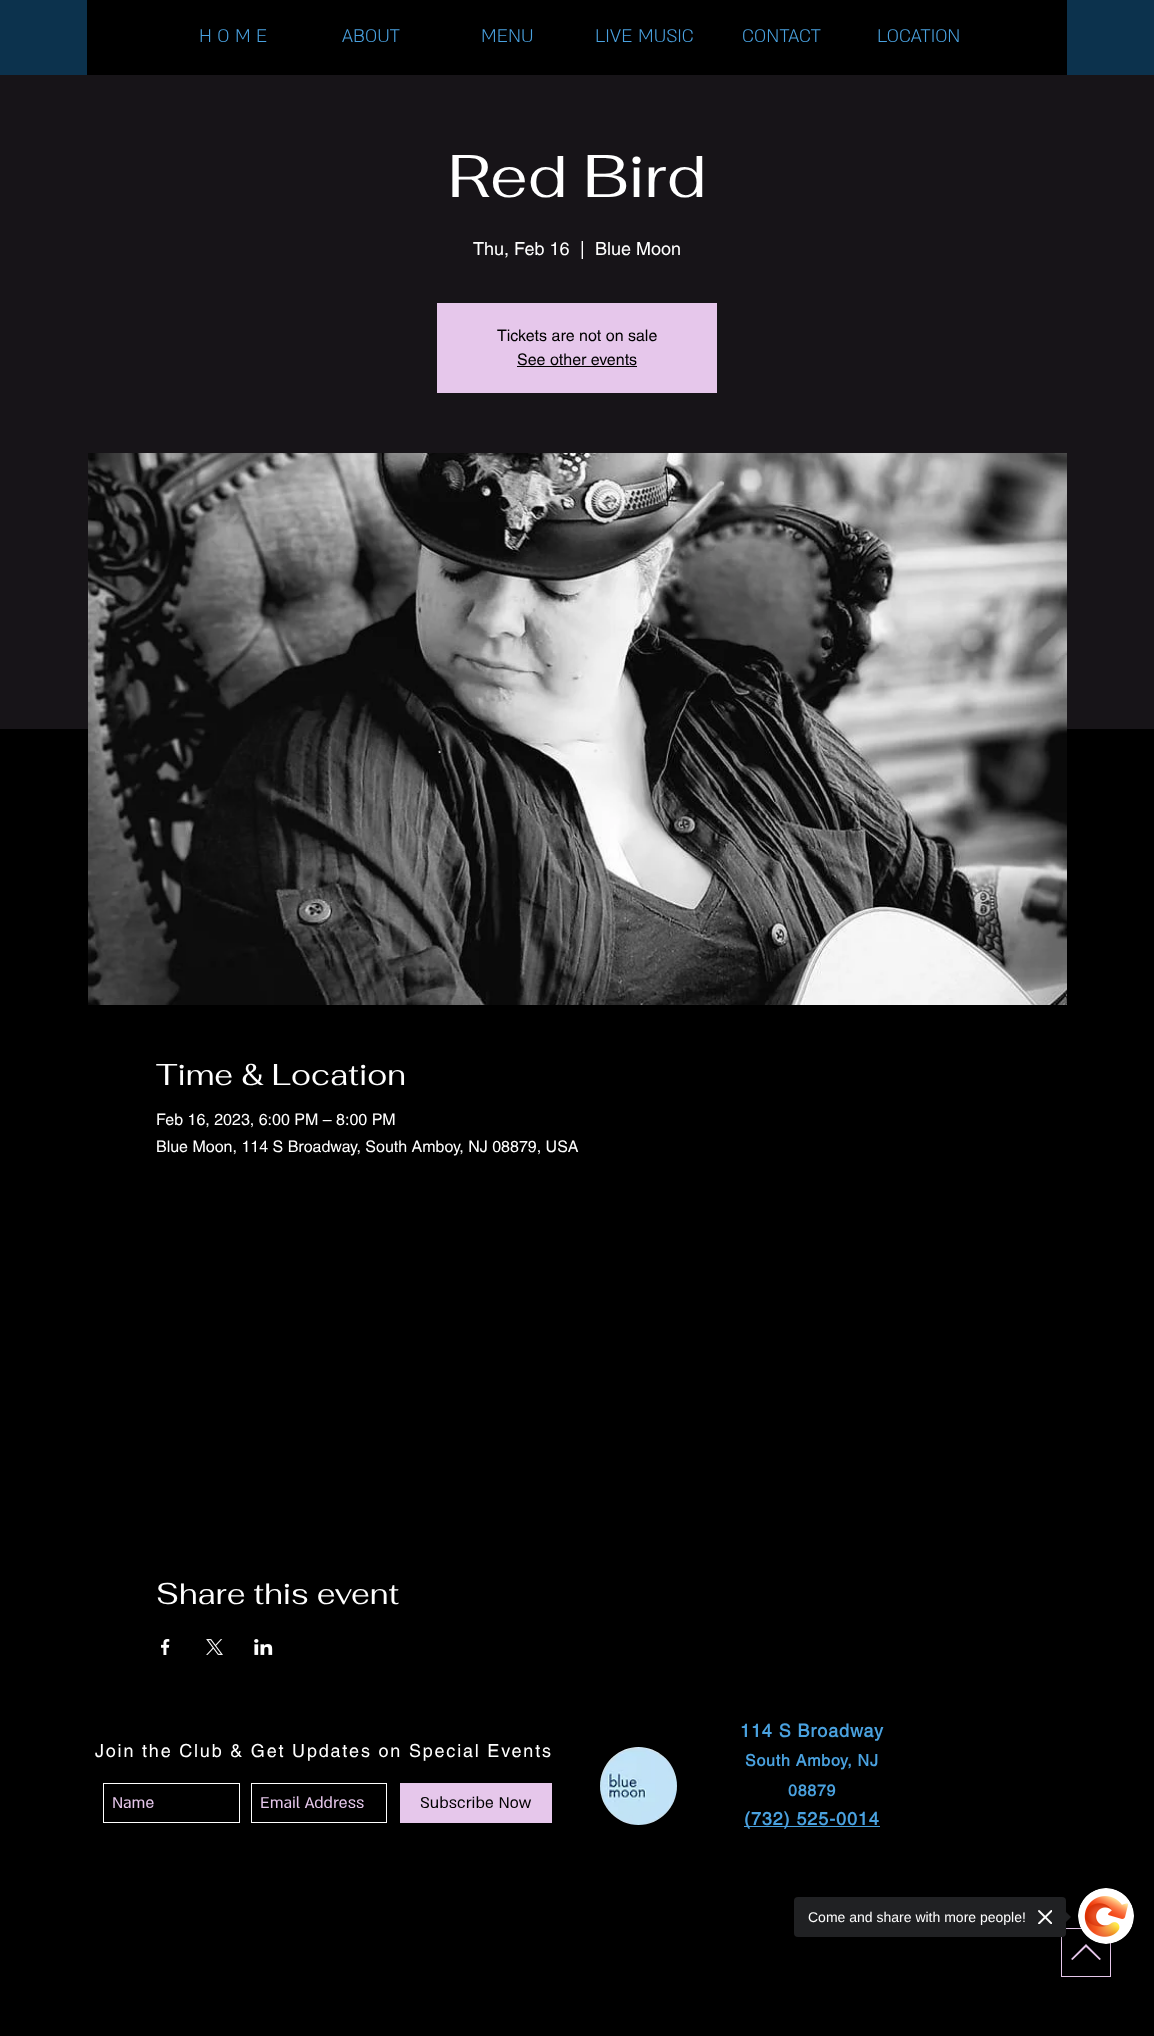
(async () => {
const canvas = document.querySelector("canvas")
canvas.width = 1154
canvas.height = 2036
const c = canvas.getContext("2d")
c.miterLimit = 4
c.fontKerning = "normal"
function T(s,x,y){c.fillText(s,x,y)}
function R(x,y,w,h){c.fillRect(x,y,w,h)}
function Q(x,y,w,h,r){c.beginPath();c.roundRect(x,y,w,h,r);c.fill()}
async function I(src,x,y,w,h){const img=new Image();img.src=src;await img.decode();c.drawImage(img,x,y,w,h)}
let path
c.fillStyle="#000"
R(0,0,1154,2036)
c.fillStyle="#0c324d"
R(0,0,1154,75)
c.fillStyle="#000"
R(87,0,980,75)
c.font="300 21px 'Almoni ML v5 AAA'"
c.fillStyle="#4aa2e0"
T("H O M E",199,42)
T("ABOUT",342,42)
T("MENU",481,42)
T("LIVE MUSIC",595,42)
T("CONTACT",742,42)
T("LOCATION",877,42)
c.fillStyle="#171418"
R(0,75,1154,654)
c.font="60px Fahkwang"
c.fillStyle="#fff"
T("Red Bird",448,197)
c.font="18px helvetica"
T("Thu, Feb 16",473,255)
T("|",580,255)
T("Blue Moon",595,255)
c.fillStyle="#e6c7eb"
R(437,303,280,90)
c.font="16px helvetica"
c.fillStyle="#000"
T("Tickets are not on sale",497,341)
T("See other events",517,365)
R(517,366,120,1)
await I("1.png",88,453,979,552)
c.font="30px Fahkwang"
c.fillStyle="#fff"
T("Time & Location",156,1085)
c.font="16px helvetica"
T("Feb 16, 2023, 6:00 PM – 8:00 PM",156,1125)
T("Blue Moon, 114 S Broadway, South Amboy, NJ 08879, USA",156,1152)
c.font="30px Fahkwang"
T("Share this event",156,1604)
await I("2.png",161,1639,9,16)
await I("3.png",206,1639,17,16)
await I("4.png",254,1639,19,16)
c.letterSpacing="1.8px"
c.font="18px helvetica"
T("Join the Club & Get Updates on Special Events",95,1757)
await I("5.png",600,1747,77,78)
c.letterSpacing="0.9px"
c.font="bold 18px helvetica"
c.fillStyle="#4aa2e0"
T("114 S Broadway",740,1737)
c.letterSpacing="0.75px"
c.font="bold 16px helvetica"
T("South Amboy, NJ",745,1766)
T("08879",788,1796)
R(744,1826,136,1)
c.letterSpacing="0.9px"
c.font="bold 18px helvetica"
T("(732) 525-0014",744,1825)
c.strokeStyle="#fff"
c.strokeRect(103.5,1783.5,136,39)
c.letterSpacing="0px"
c.font="18px 'Almoni ML v5 AAA'"
c.fillStyle="#e6c7eb"
T("Name",112,1808)
c.strokeRect(251.5,1783.5,135,39)
T("Email Address",260,1808)
R(400,1783,152,40)
c.fillStyle="#000"
T("Subscribe Now",420,1808)
c.strokeStyle="#e6c7eb"
c.strokeRect(1061.5,1928.5,49,48)
c.fillStyle="#e6c7eb"
path = new Path2D("M1071 1959l1.5 1l13.5-13l13.5 13l1.5-1l-15-15z")
c.fill(path)
c.fillStyle="#0000002b"
c.filter="blur(4.5px)"
c.beginPath()
c.roundRect(1079,1892,56,56,28)
c.fill()
c.filter="none"
c.fillStyle="#00000038"
c.filter="blur(2px)"
c.beginPath()
c.roundRect(794,1899,272,40,4)
c.fill()
c.filter="none"
c.fillStyle="#202123"
Q(794,1897,272,40,4)
c.font="14px Liberation Sans"
c.fillStyle="#fff"
T("Come and share with more people!",808,1922)
await I("6.png",1038,1910,14,14)
c.fillStyle="#202123"
path = new Path2D("M1064 1924v-14l7 7z")
c.fill(path)
await I("7.png",1078,1888,56,56)
})()
